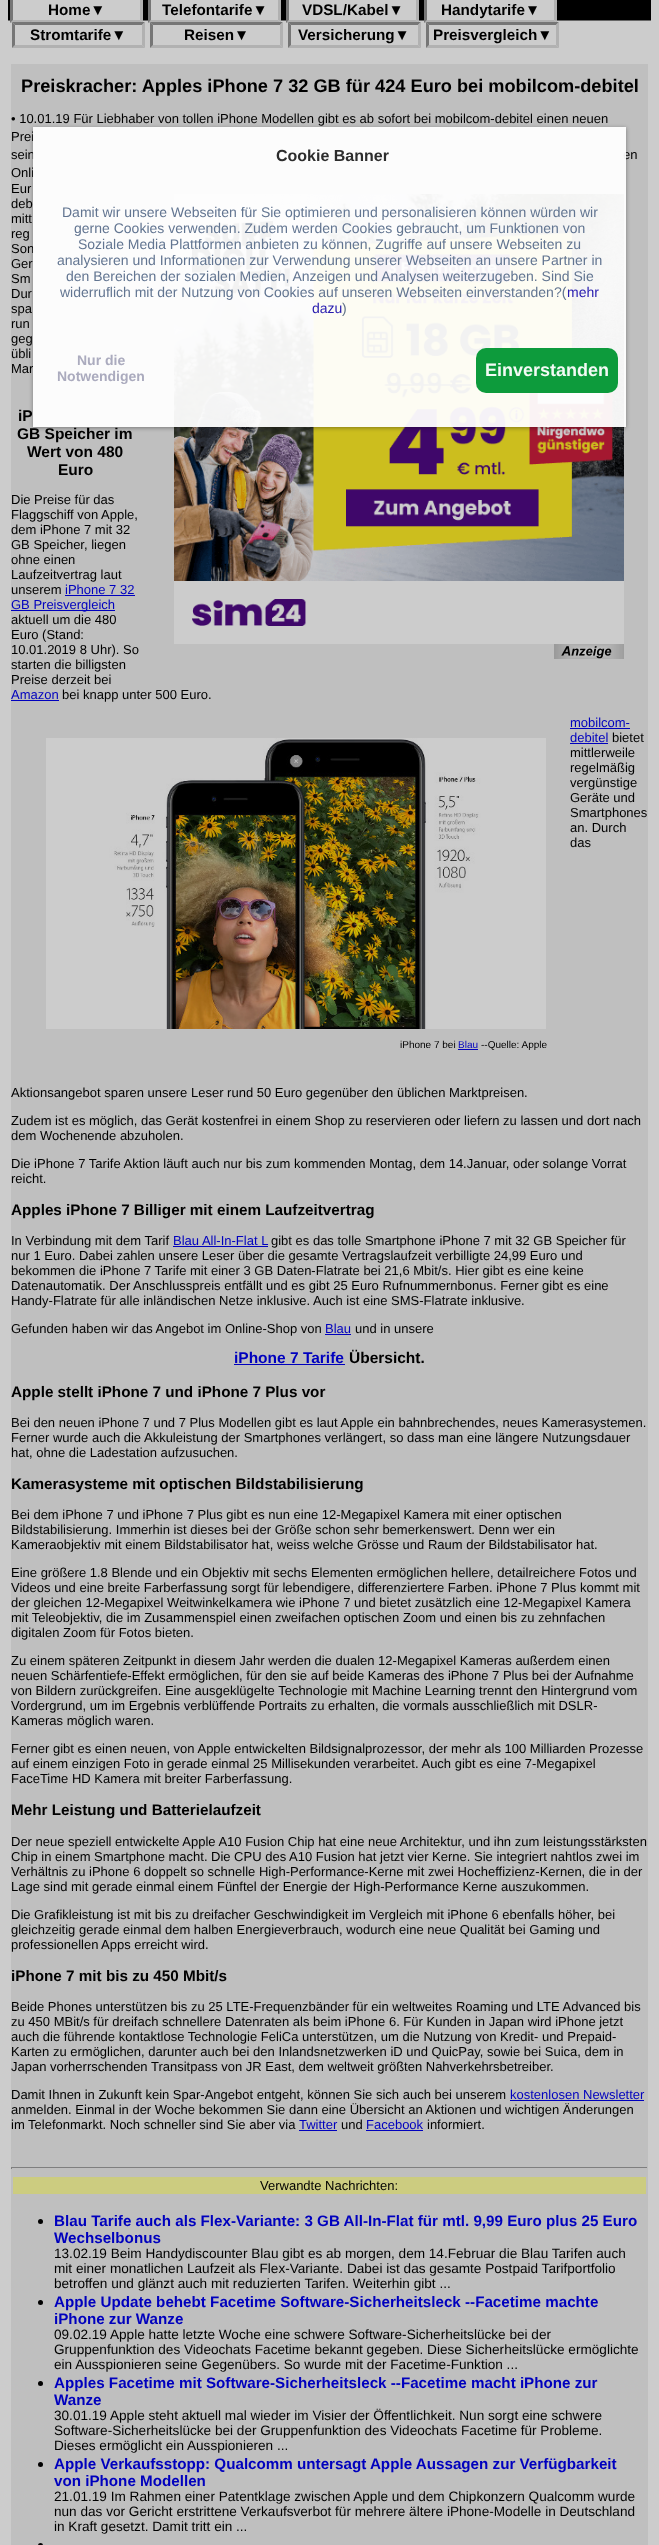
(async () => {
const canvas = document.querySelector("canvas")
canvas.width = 659
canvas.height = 2545
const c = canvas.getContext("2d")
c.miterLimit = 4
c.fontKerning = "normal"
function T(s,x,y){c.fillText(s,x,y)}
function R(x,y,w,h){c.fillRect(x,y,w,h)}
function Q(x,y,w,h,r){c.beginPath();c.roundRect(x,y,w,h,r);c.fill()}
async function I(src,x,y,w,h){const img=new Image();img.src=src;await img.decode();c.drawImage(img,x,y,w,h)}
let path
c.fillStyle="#ccc"
R(0,0,659,2545)
c.fillStyle="#000"
R(8,0,643,20)
c.fillStyle="#666"
R(8,20,643,1)
c.fillStyle="#ccc"
R(10,0,132,21)
c.fillStyle="#b1b1b1"
path = new Path2D("M143-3v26l-3-3v-20z")
c.fill(path)
path = new Path2D("M143 23h-133l3-3h127z")
c.fill(path)
c.fillStyle="#767676"
path = new Path2D("M10 23v-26l3 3v20z")
c.fill(path)
c.font="bold 15.25px Liberation Sans"
c.fillStyle="#000"
T("Home▼",48,15)
c.fillStyle="#ccc"
R(148,0,132,21)
c.fillStyle="#b1b1b1"
path = new Path2D("M281-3v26l-3-3v-20z")
c.fill(path)
path = new Path2D("M281 23h-133l3-3h127z")
c.fill(path)
c.fillStyle="#767676"
path = new Path2D("M148 23v-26l3 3v20z")
c.fill(path)
c.fillStyle="#000"
T("Telefontarife▼",162,15)
c.fillStyle="#ccc"
R(286,0,132,21)
c.fillStyle="#b1b1b1"
path = new Path2D("M419-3v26l-3-3v-20z")
c.fill(path)
path = new Path2D("M419 23h-133l3-3h127z")
c.fill(path)
c.fillStyle="#767676"
path = new Path2D("M286 23v-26l3 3v20z")
c.fill(path)
c.fillStyle="#000"
T("VDSL/Kabel▼",302,15)
c.fillStyle="#ccc"
R(424,0,132,21)
c.fillStyle="#b1b1b1"
path = new Path2D("M557-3v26l-3-3v-20z")
c.fill(path)
path = new Path2D("M557 23h-133l3-3h127z")
c.fill(path)
c.fillStyle="#767676"
path = new Path2D("M424 23v-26l3 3v20z")
c.fill(path)
c.fillStyle="#000"
T("Handytarife▼",441,15)
c.fillStyle="#ccc"
R(12,22,131,1)
c.fillStyle="#767676"
path = new Path2D("M12 22h133l-3 3h-127z")
c.fill(path)
c.fillStyle="#b1b1b1"
path = new Path2D("M145 22v26l-3-3v-20z")
c.fill(path)
path = new Path2D("M145 48h-133l3-3h127z")
c.fill(path)
c.fillStyle="#767676"
path = new Path2D("M12 48v-26l3 3v20z")
c.fill(path)
c.fillStyle="#000"
T("Stromtarife▼",30,40)
c.fillStyle="#ccc"
R(150,22,131,1)
c.fillStyle="#767676"
path = new Path2D("M150 22h133l-3 3h-127z")
c.fill(path)
c.fillStyle="#b1b1b1"
path = new Path2D("M283 22v26l-3-3v-20z")
c.fill(path)
path = new Path2D("M283 48h-133l3-3h127z")
c.fill(path)
c.fillStyle="#767676"
path = new Path2D("M150 48v-26l3 3v20z")
c.fill(path)
c.fillStyle="#000"
T("Reisen▼",184,40)
c.fillStyle="#ccc"
R(288,22,131,1)
c.fillStyle="#767676"
path = new Path2D("M288 22h133l-3 3h-127z")
c.fill(path)
c.fillStyle="#b1b1b1"
path = new Path2D("M421 22v26l-3-3v-20z")
c.fill(path)
path = new Path2D("M421 48h-133l3-3h127z")
c.fill(path)
c.fillStyle="#767676"
path = new Path2D("M288 48v-26l3 3v20z")
c.fill(path)
c.fillStyle="#000"
T("Versicherung▼",298,40)
c.fillStyle="#ccc"
R(426,22,131,1)
c.fillStyle="#767676"
path = new Path2D("M426 22h133l-3 3h-127z")
c.fill(path)
c.fillStyle="#b1b1b1"
path = new Path2D("M559 22v26l-3-3v-20z")
c.fill(path)
path = new Path2D("M559 48h-133l3-3h127z")
c.fill(path)
c.fillStyle="#767676"
path = new Path2D("M426 48v-26l3 3v20z")
c.fill(path)
c.fillStyle="#000"
T("Preisvergleich▼",433,40)
c.fillStyle="#bfbfbf"
R(11,64,637,2481)
c.font="bold 18.2px Liberation Sans"
c.fillStyle="#000"
T("Preiskracher: Apples iPhone 7 32 GB für 424 Euro bei mobilcom-debitel",21,92)
c.font="13px Liberation Sans"
T("• 10.01.19 Für Liebhaber von tollen iPhone Modellen gibt es ab sofort bei mobilcom-debitel einen neuen",11,123)
T("Prei",11,141)
T("sein",11,159)
T("en",623,159)
T("Onli",11,177)
T("Eur",11,193)
T("deb",11,208)
await I("1.png",174,194,450,450)
await I("2.png",554,644,70,15)
T("mitt",11,223)
T("reg",11,238)
T("Son",11,253)
T("Ger",11,268)
T("Sm",11,283)
T("Dur",11,298)
T("spa",11,313)
T("run",11,328)
T("geg",11,343)
T("übli",11,358)
T("Mar",11,373)
c.font="bold 15.5px Liberation Sans"
T("iP",18,421)
T("GB Speicher im",17,439)
T("Wert von 480",27,457)
T("Euro",58,475)
c.font="13px Liberation Sans"
T("Die Preise für das",11,504)
T("Flaggschiff von Apple,",11,519)
T("dem iPhone 7 mit 32",11,534)
T("GB Speicher, liegen",11,549)
T("ohne einen",11,564)
T("Laufzeitvertrag laut",11,579)
T("unserem",11,594)
c.fillStyle="#0000be"
T("iPhone 7 32",65,594)
R(65,595,70,1)
R(11,610,104,1)
T("GB Preisvergleich",11,609)
c.fillStyle="#000"
T("aktuell um die 480",11,624)
T("Euro (Stand:",11,639)
T("10.01.2019 8 Uhr). So",11,654)
T("starten die billigsten",11,669)
T("Preise derzeit bei",11,684)
c.fillStyle="#0000be"
T("Amazon",11,699)
R(11,700,48,1)
c.fillStyle="#000"
T("bei knapp unter 500 Euro.",62,699)
c.fillStyle="#0000be"
T("mobilcom-",570,727)
R(570,728,60,1)
T("debitel",570,742)
R(570,743,38,1)
c.fillStyle="#000"
T("bietet",612,742)
T("mittlerweile",570,757)
T("regelmäßig",570,772)
T("vergünstige",570,787)
T("Geräte und",570,802)
T("Smartphones",570,817)
T("an. Durch",570,832)
T("das",570,847)
T("Aktionsangebot sparen unsere Leser rund 50 Euro gegenüber den üblichen Marktpreisen.",11,1097)
await I("3.png",46,738,500,291)
c.font="10px Liberation Sans"
T("iPhone 7 bei",400,1048)
c.fillStyle="#0000be"
T("Blau",458,1048)
R(458,1049,20,1)
c.fillStyle="#000"
T("--Quelle: Apple",481,1048)
c.font="13px Liberation Sans"
T("Zudem ist es möglich, das Gerät kostenfrei in einem Shop zu reservieren oder liefern zu lassen und dort nach",11,1125)
T("dem Wochenende abzuholen.",11,1140)
T("Die iPhone 7 Tarife Aktion läuft auch nur bis zum kommenden Montag, dem 14.Januar, oder solange Vorrat",11,1168)
T("reicht.",11,1183)
c.font="bold 15.25px Liberation Sans"
T("Apples iPhone 7 Billiger mit einem Laufzeitvertrag",11,1215)
c.font="13px Liberation Sans"
T("In Verbindung mit dem Tarif",11,1245)
c.fillStyle="#0000be"
T("Blau All-In-Flat L",173,1245)
R(173,1246,95,1)
c.fillStyle="#000"
T("gibt es das tolle Smartphone iPhone 7 mit 32 GB Speicher für",271,1245)
T("nur 1 Euro. Dabei zahlen unsere Leser über die gesamte Vertragslaufzeit verbilligte 24,99 Euro und",11,1260)
T("bekommen die iPhone 7 Tarife mit einer 3 GB Daten-Flatrate bei 21,6 Mbit/s. Hier gibt es eine keine",11,1275)
T("Datenautomatik. Der Anschlusspreis entfällt und es gibt 25 Euro Rufnummernbonus. Ferner gibt es eine",11,1290)
T("Handy-Flatrate für alle inländischen Netze inklusive. Auch ist eine SMS-Flatrate inklusive.",11,1305)
T("Gefunden haben wir das Angebot im Online-Shop von",11,1333)
c.fillStyle="#0000be"
T("Blau",325,1333)
R(325,1334,26,1)
c.fillStyle="#000"
T("und in unsere",355,1333)
c.font="bold 15.5px Liberation Sans"
c.fillStyle="#0000be"
T("iPhone 7 Tarife",234,1363)
R(234,1364,111,1)
c.fillStyle="#000"
T("Übersicht.",349,1363)
c.font="bold 15.25px Liberation Sans"
T("Apple stellt iPhone 7 und iPhone 7 Plus vor",11,1397)
c.font="13px Liberation Sans"
T("Bei den neuen iPhone 7 und 7 Plus Modellen gibt es laut Apple ein bahnbrechendes, neues Kamerasystemen.",11,1427)
T("Ferner wurde auch die Akkuleistung der Smartphones verlängert, so dass man eine längere Nutzungsdauer",11,1442)
T("hat, ohne die Ladestation aufzusuchen.",11,1457)
c.font="bold 15.25px Liberation Sans"
T("Kamerasysteme mit optischen Bildstabilisierung",11,1489)
c.font="13px Liberation Sans"
T("Bei dem iPhone 7 und iPhone 7 Plus gibt es nun eine 12-Megapixel Kamera mit einer optischen",11,1519)
T("Bildstabilisierung. Immerhin ist dieses bei der Größe schon sehr bemerkenswert. Denn wer ein",11,1534)
T("Kameraobjektiv mit einem Bildstabilisator hat, weiss welche Grösse und Raum der Bildstabilisator hat.",11,1549)
T("Eine größere 1.8 Blende und ein Objektiv mit sechs Elementen ermöglichen hellere, detailreichere Fotos und",11,1577)
T("Videos und eine breite Farberfassung sorgt für lebendigere, differenziertere Farben. iPhone 7 Plus kommt mit",11,1592)
T("der gleichen 12-Megapixel Weitwinkelkamera wie iPhone 7 und bietet zusätzlich eine 12-Megapixel Kamera",11,1607)
T("mit Teleobjektiv, die im Zusammenspiel einen zweifachen optischen Zoom und einen bis zu zehnfachen",11,1622)
T("digitalen Zoom für Fotos bieten.",11,1637)
T("Zu einem späteren Zeitpunkt in diesem Jahr werden die dualen 12-Megapixel Kameras außerdem einen",11,1665)
T("neuen Schärfentiefe-Effekt ermöglichen, für den sie auf beide Kameras des iPhone 7 Plus bei der Aufnahme",11,1680)
T("von Bildern zurückgreifen. Eine ausgeklügelte Technologie mit Machine Learning trennt den Hintergrund vom",11,1695)
T("Vordergrund, um im Ergebnis verblüffende Portraits zu erhalten, die vormals ausschließlich mit DSLR-",11,1710)
T("Kameras möglich waren.",11,1725)
T("Ferner gibt es einen neuen, von Apple entwickelten Bildsignalprozessor, der mehr als 100 Milliarden Prozesse",11,1753)
T("auf einem einzigen Foto in gerade einmal 25 Millisekunden verarbeitet. Auch gibt es eine 7-Megapixel",11,1768)
T("FaceTime HD Kamera mit breiter Farberfassung.",11,1783)
c.font="bold 15.25px Liberation Sans"
T("Mehr Leistung und Batterielaufzeit",11,1815)
c.font="13px Liberation Sans"
T("Der neue speziell entwickelte Apple A10 Fusion Chip hat eine neue Architektur, und ihn zum leistungsstärksten",11,1846)
T("Chip in einem Smartphone macht.",11,1861)
T("Die CPU des",211,1861)
T("A10 Fusion hat jetzt vier Kerne. Sie integriert nahtlos zwei im",289,1861)
T("Verhältnis zu iPhone 6 doppelt so schnelle High-Performance-Kerne mit zwei Hocheffizienz-Kernen, die in der",11,1876)
T("Lage sind mit gerade einmal einem Fünftel der Energie der High-Performance Kerne auszukommen.",11,1891)
T("Die Grafikleistung ist mit bis zu dreifacher Geschwindigkeit im Vergleich mit iPhone 6 ebenfalls höher, bei",11,1919)
T("gleichzeitig gerade einmal dem halben Energieverbrauch, wodurch eine neue Qualität bei Gaming und",11,1934)
T("professionellen",11,1949)
T("Apps erreicht wird.",101,1949)
c.font="bold 15.25px Liberation Sans"
T("iPhone 7 mit bis zu 450 Mbit/s",11,1981)
c.font="13px Liberation Sans"
T("Beide Phones unterstützen bis zu 25 LTE-Frequenzbänder für ein weltweites Roaming und LTE Advanced bis",11,2011)
T("zu 450 MBit/s für dreifach schnellere Datenraten als beim iPhone 6. Für Kunden in Japan wird iPhone jetzt",11,2026)
T("auch die führende kontaktlose Technologie FeliCa unterstützen, um die Nutzung von Kredit- und Prepaid-",11,2041)
T("Karten zu ermöglichen, darunter auch bei den Inlandsnetzwerken iD und QuicPay, sowie bei Suica, dem in",11,2056)
T("Japan vorherrschenden Transitpass von JR East, dem weltweit größten Nahverkehrsbetreiber.",11,2071)
T("Damit Ihnen in Zukunft kein Spar-Angebot entgeht, können Sie sich auch bei unserem",11,2099)
c.fillStyle="#0000be"
T("kostenlosen Newsletter",510,2099)
R(510,2100,134,1)
c.fillStyle="#000"
T("anmelden. Einmal in der Woche bekommen Sie dann eine Übersicht an Aktionen und wichtigen Änderungen",11,2114)
T("im Telefonmarkt. Noch schneller sind Sie aber via",11,2129)
c.fillStyle="#0000be"
T("Twitter",299,2129)
R(299,2130,38,1)
c.fillStyle="#000"
T("und",341,2129)
c.fillStyle="#0000be"
T("Facebook",366,2129)
R(366,2130,57,1)
c.fillStyle="#000"
T("informiert.",427,2129)
c.fillStyle="#7f7f7f"
R(11,2167,637,1)
c.fillStyle="#bebebe"
R(647,2167,1,2)
c.fillStyle="#7f7f7f"
R(11,2167,1,2)
c.fillStyle="#cccc80"
R(13,2177,633,17)
c.fillStyle="#000"
T("Verwandte Nachrichten:",260,2190)
c.beginPath()
c.arc(40.5,2221.5,2.5,0,7)
c.fill()
c.font="bold 15.2px Liberation Sans"
c.fillStyle="#0000be"
T("Blau Tarife auch als Flex-Variante: 3 GB All-In-Flat für mtl. 9,99 Euro plus 25 Euro",54,2226)
T("Wechselbonus",54,2243)
c.font="13.6px Liberation Sans"
c.fillStyle="#000"
T("13.02.19 Beim Handydiscounter Blau gibt es ab morgen, dem 14.Februar die Blau Tarifen auch",54,2258)
T("mit einer monatlichen Laufzeit als Flex-Variante. Dabei ist das gesamte Postpaid Tarifportfolio",54,2273)
T("betroffen und glänzt auch mit reduzierten Tarifen. Weiterhin gibt ...",54,2288)
c.beginPath()
c.arc(40.5,2302.5,2.5,0,7)
c.fill()
c.font="bold 15.2px Liberation Sans"
c.fillStyle="#0000be"
T("Apple Update behebt Facetime Software-Sicherheitsleck --Facetime machte",54,2307)
T("iPhone zur Wanze",54,2324)
c.font="13.6px Liberation Sans"
c.fillStyle="#000"
T("09.02.19 Apple hatte letzte Woche eine schwere Software-Sicherheitslücke bei der",54,2339)
T("Gruppenfunktion des Videochats Facetime bekannt gegeben. Diese Sicherheitslücke ermöglichte",54,2354)
T("ein Ausspionieren seine Gegenübers. So wurde mit der Facetime-Funktion ...",54,2369)
c.beginPath()
c.arc(40.5,2383.5,2.5,0,7)
c.fill()
c.font="bold 15.2px Liberation Sans"
c.fillStyle="#0000be"
T("Apples Facetime mit Software-Sicherheitsleck --Facetime macht iPhone zur",54,2388)
T("Wanze",54,2405)
c.font="13.6px Liberation Sans"
c.fillStyle="#000"
T("30.01.19 Apple steht aktuell mal wieder im Visier der Öffentlichkeit. Nun sorgt eine schwere",54,2420)
T("Software-Sicherheitslücke bei der Gruppenfunktion des Videochats Facetime für Probleme.",54,2435)
T("Dieses ermöglicht ein Ausspionieren ...",54,2450)
c.beginPath()
c.arc(40.5,2464.5,2.5,0,7)
c.fill()
c.font="bold 15.2px Liberation Sans"
c.fillStyle="#0000be"
T("Apple Verkaufsstopp: Qualcomm untersagt Apple Aussagen zur Verfügbarkeit",54,2469)
T("von iPhone Modellen",54,2486)
c.font="13.6px Liberation Sans"
c.fillStyle="#000"
T("21.01.19 Im Rahmen einer Patentklage zwischen Apple und dem Chipkonzern Qualcomm wurde",54,2501)
T("nun das vor Gericht erstrittene Verkaufsverbot für mehrere ältere iPhone-Modelle in Deutschland",54,2516)
T("in Kraft gesetzt. Damit tritt ein ...",54,2531)
c.beginPath()
c.arc(40.5,2545.5,2.5,0,7)
c.fill()
c.save()
path = new Path2D("M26 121h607v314h-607zm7 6h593v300h-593z")
c.clip(path,"evenodd")
c.fillStyle="#0a0a0a61"
c.filter="blur(2px)"
c.beginPath()
c.rect(33,128,593,300)
c.fill()
c.filter="none"
c.restore()
c.fillStyle="#fffffff2"
R(33,127,593,300)
c.font="bold 16px Liberation Sans"
c.fillStyle="#2d2d2d"
T("Cookie Banner",276,161)
c.font="14px Liberation Sans"
c.fillStyle="#627591"
T("Damit wir unsere Webseiten für Sie optimieren und personalisieren können würden wir",62,217)
T("gerne Cookies verwenden. Zudem werden Cookies gebraucht, um Funktionen von",74,233)
T("Soziale Media Plattformen anbieten zu können, Zugriffe auf unsere Webseiten zu",78,249)
T("analysieren und Informationen zur Verwendung unserer Webseiten an unsere Partner in",57,265)
T("den Bereichen der sozialen Medien, Anzeigen und Analysen weiterzugeben. Sind Sie",66,281)
T("widerruflich mit der Nutzung von Cookies auf unseren Webseiten einverstanden?(",60,297)
c.fillStyle="#2519af"
T("mehr",567,297)
T("dazu",312,313)
c.fillStyle="#607287"
T(")",342,313)
c.font="bold 14px Liberation Sans"
c.fillStyle="#ababbe"
T("Nur die",77,365)
T("Notwendigen",57,381)
c.fillStyle="#009632f2"
Q(476,348,142,45,10)
c.font="bold 18px Liberation Sans"
c.fillStyle="#f3faf5"
T("Einverstanden",485,376)
})()
